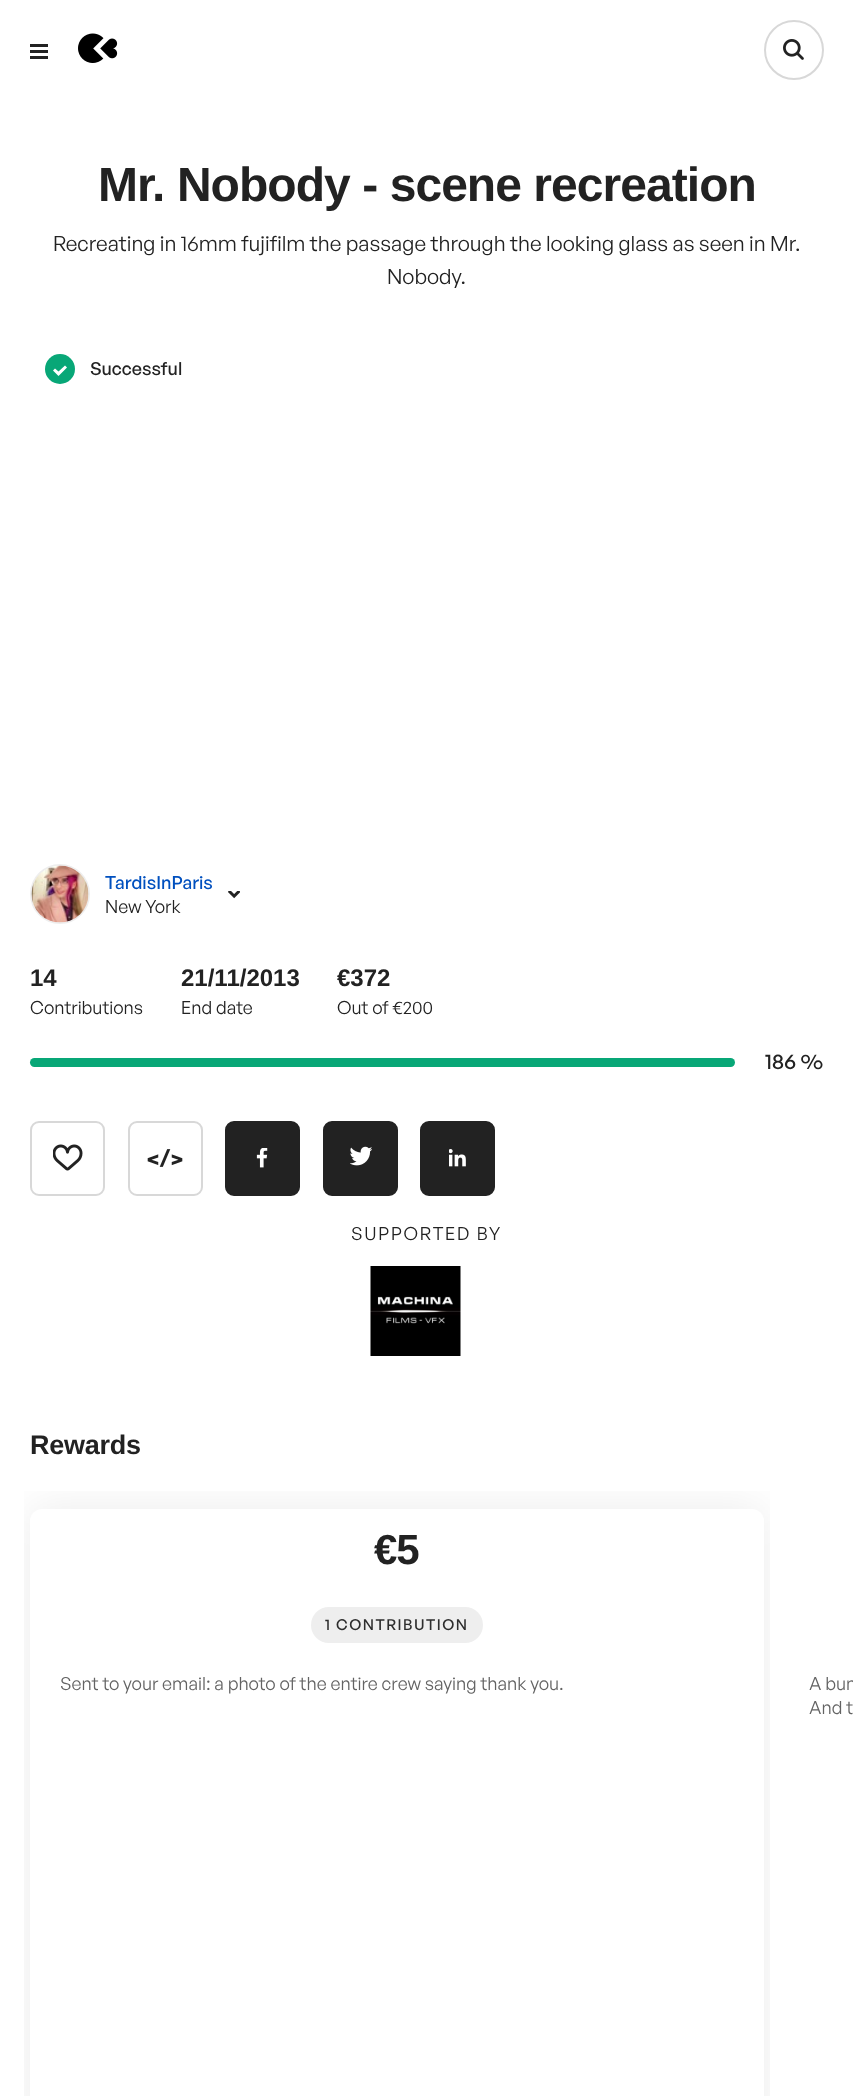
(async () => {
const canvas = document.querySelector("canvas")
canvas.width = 853
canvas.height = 2096
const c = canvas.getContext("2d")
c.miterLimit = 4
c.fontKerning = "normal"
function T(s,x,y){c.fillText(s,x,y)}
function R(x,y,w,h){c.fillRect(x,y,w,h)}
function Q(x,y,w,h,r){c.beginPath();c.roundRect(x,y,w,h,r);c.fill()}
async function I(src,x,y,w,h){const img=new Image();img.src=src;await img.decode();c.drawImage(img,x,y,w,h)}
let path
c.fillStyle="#fff"
R(0,0,853,2096)
c.fillStyle="#222"
R(30,44,18,3)
R(30,50,18,3)
R(30,56,18,3)
await I("1.png",78,33,40,30)
c.beginPath()
c.arc(794,50,29,0,7)
c.strokeStyle="#d8d8d8"
c.lineWidth=2
c.stroke()
await I("2.png",783,39,21,21)
c.letterSpacing="-0.95px"
c.font="bold 48px Liberation Sans"
T("Mr. Nobody - scene recreation",98,201)
c.letterSpacing="0px"
c.font="21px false"
T("Recreating in 16mm fujifilm the passage through the looking glass as seen in Mr.",53,251)
T("Nobody.",387,284)
c.fillStyle="#08a777"
c.beginPath()
c.arc(60,369,15,0,7)
c.fill()
c.fillStyle="#fff"
path = new Path2D("M57.5 375l1 1l8.5-8.5l-2-2l-6.5 6l-3.5-3l-2 2z")
c.fill(path)
c.font="500 18px General Sans"
c.fillStyle="#222"
T("Successful",90,375)
c.beginPath()
c.arc(60,894,29,0,7)
c.strokeStyle="#eee"
c.stroke()
await I("3.png",31,865,58,58)
c.fillStyle="#0050bf"
T("TardisInParis",105,889)
c.font="18px false"
c.fillStyle="#222"
T("New York",105,913)
await I("4.png",228,891,12,8)
c.font="bold 24px Liberation Sans"
T("14",30,986)
c.font="18px false"
T("Contributions",30,1014)
c.font="bold 24px Liberation Sans"
T("21/11/2013",181,986)
c.font="18px false"
T("End date",181,1014)
c.font="bold 24px Liberation Sans"
T("€372",337,986)
c.font="18px false"
T("Out of €200",337,1014)
c.fillStyle="#08a777"
Q(30,1058,705,9,4.5)
c.font="500 21px General Sans"
c.fillStyle="#222"
T("186 %",765,1069)
c.beginPath()
c.roundRect(31,1122,73,73,8)
c.strokeStyle="#d8d8d8"
c.stroke()
await I("5.png",53,1144,30,27)
c.beginPath()
c.roundRect(129,1122,73,73,8)
c.stroke()
await I("6.png",147,1149,36,18)
c.beginPath()
c.roundRect(226,1122,73,73,8)
c.fill()
c.strokeStyle="#222"
c.stroke()
await I("7.png",256,1148,12,20)
c.beginPath()
c.roundRect(324,1122,73,73,8)
c.fill()
c.stroke()
await I("8.png",350,1146,22,20)
c.beginPath()
c.roundRect(421,1122,73,73,8)
c.fill()
c.stroke()
await I("9.png",449,1149,17,18)
c.letterSpacing="1.75px"
c.font="18px false"
T("SUPPORTED BY",351,1240)
await I("10.png",370,1266,91,90)
c.letterSpacing="-0.25px"
c.font="bold 27px Liberation Sans"
T("Rewards",30,1454)
c.save()
c.beginPath()
c.rect(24,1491,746,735)
c.clip()
c.fillStyle="#00000014"
c.filter="blur(22.5px)"
c.beginPath()
c.roundRect(30,1509,734,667,12)
c.fill()
c.filter="none"
c.restore()
c.fillStyle="#fff"
Q(30,1509,734,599,12)
c.letterSpacing="-1px"
c.font="bold 42px Liberation Sans"
c.fillStyle="#222"
T("€5",374,1564)
c.fillStyle="#eee"
Q(311,1607,172,36,18)
c.letterSpacing="1.5px"
c.font="500 15px General Sans"
c.fillStyle="#2d2d2d"
T("1 CONTRIBUTION",325,1630)
c.letterSpacing="0px"
c.font="18px false"
c.fillStyle="#636363"
T("Sent to your email: a photo of the entire crew saying thank you.",60,1690)
T("A bun",809,1690)
T("And t",809,1714)
})()
